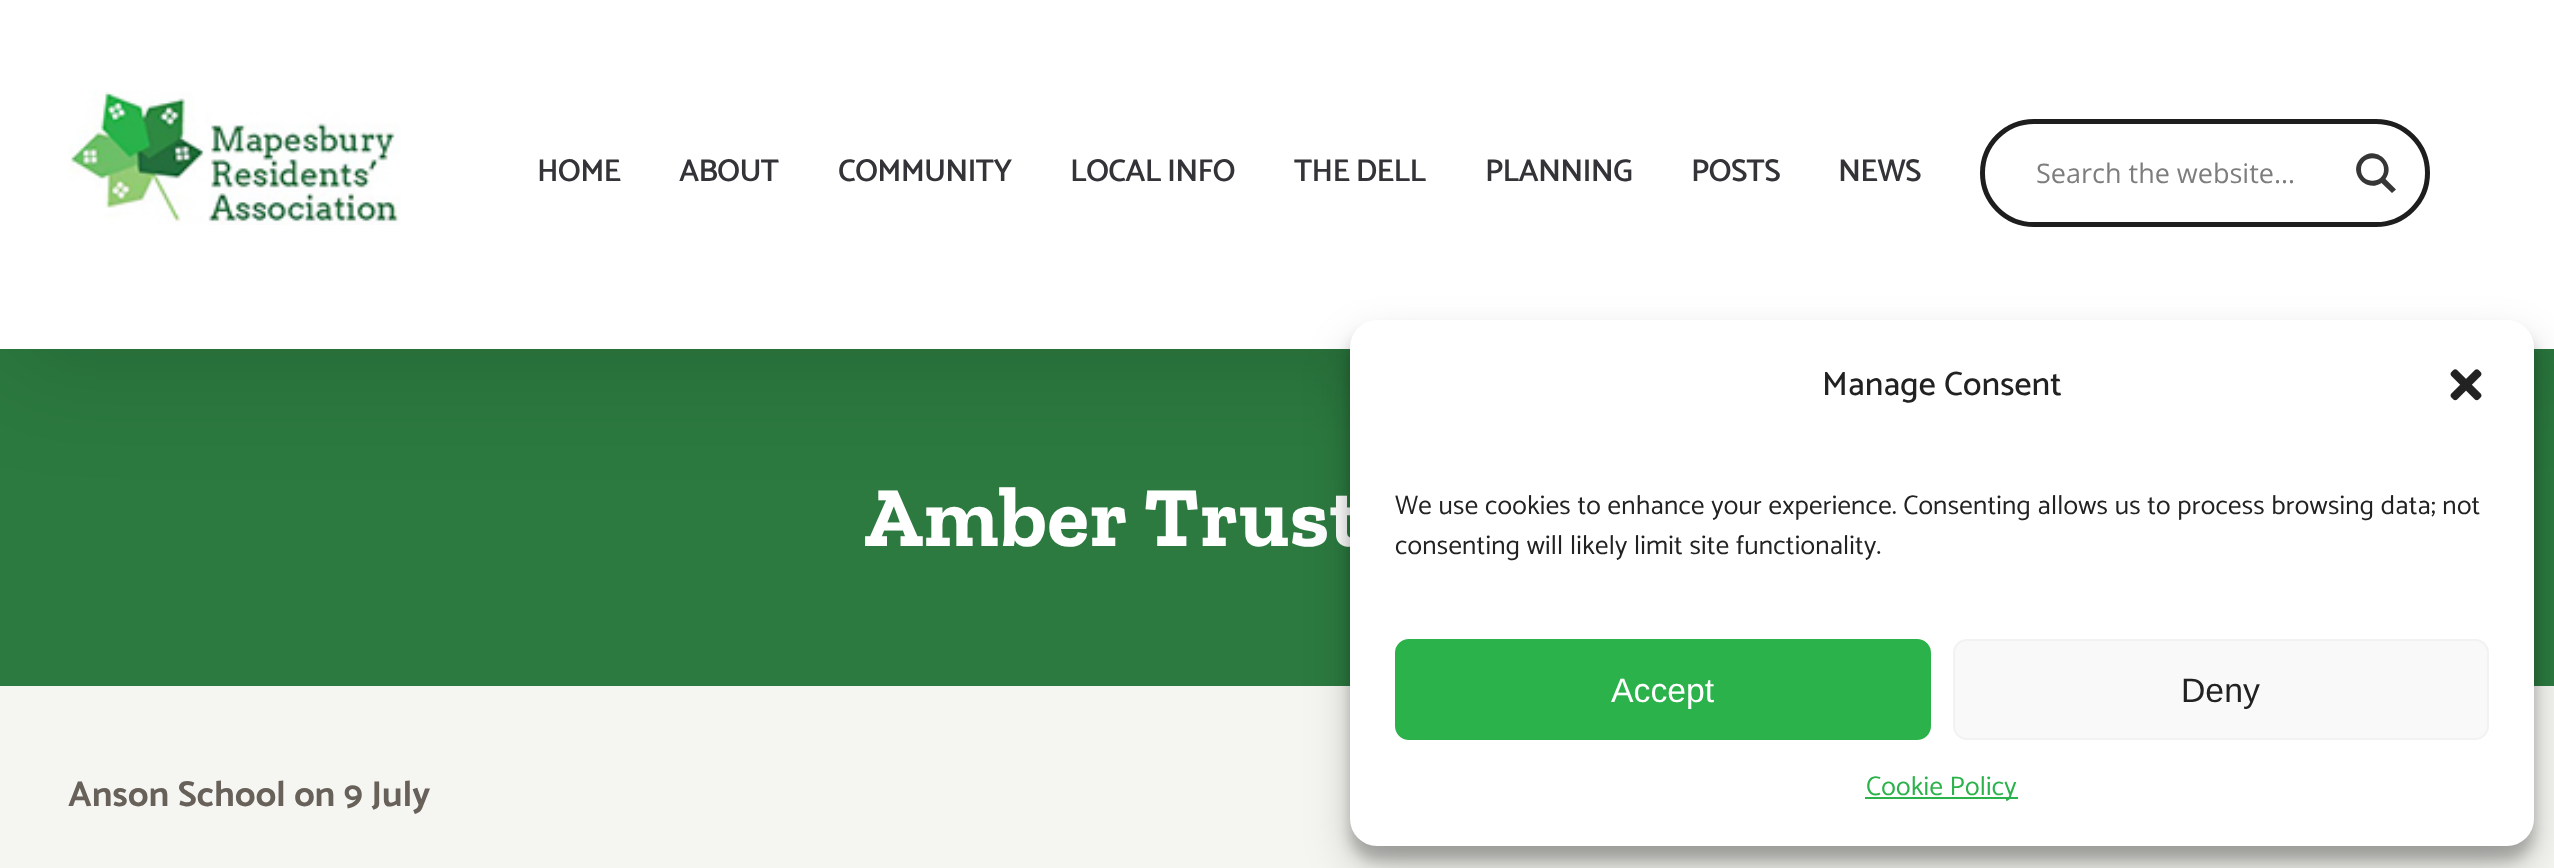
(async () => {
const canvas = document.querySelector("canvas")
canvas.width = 2554
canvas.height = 868
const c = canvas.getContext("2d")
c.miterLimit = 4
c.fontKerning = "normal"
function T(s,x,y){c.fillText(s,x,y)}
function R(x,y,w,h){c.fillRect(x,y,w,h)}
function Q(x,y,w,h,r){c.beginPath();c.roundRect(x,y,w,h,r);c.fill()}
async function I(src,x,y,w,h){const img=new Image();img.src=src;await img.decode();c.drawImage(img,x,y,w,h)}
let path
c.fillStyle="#f5f5f1"
R(0,0,2554,868)
c.fillStyle="#2c7a40"
R(0,349,2554,337)
c.fillStyle="#00000024"
c.filter="blur(56px)"
c.beginPath()
c.rect(5,27,2547,340)
c.fill()
c.filter="none"
c.fillStyle="#fff"
R(0,0,2554,349)
await I("1.png",68,90,333,135)
c.letterSpacing="-0.75px"
c.font="600 31.5px Catamaran"
c.fillStyle="#333338"
T("HOME",537,181)
T("ABOUT",679,181)
T("COMMUNITY",838,181)
T("LOCAL INFO",1070,181)
T("THE DELL",1294,181)
T("PLANNING",1485,181)
T("POSTS",1691,181)
T("NEWS",1838,181)
c.beginPath()
c.roundRect(1982.5,121.5,445,103,51.5)
c.strokeStyle="#1e1e1e"
c.lineWidth=5
c.stroke()
c.letterSpacing="0px"
c.font="27px Open Sans"
c.fillStyle="#7d7d7d"
T("Search the website…",2036,183)
c.fillStyle="#363636"
path = new Path2D("M2396 189.5l-10.5-10.5c11.5-15.5-10.5-35-24.5-21c-14 14 5 35.5 20.5 25l10.5 10zm-35-20c0-15 23-15 23 0c0 15-23 15-23 0z")
c.fill(path)
c.letterSpacing="0.9px"
c.font="bold 85.5px Zilla Slab"
c.fillStyle="#fff"
T("Amber Trust",864,546)
c.letterSpacing="0.23px"
c.font="bold 36px Catamaran"
c.fillStyle="#67615a"
T("Anson School on 9 July",68,806)
c.fillStyle="#0000003b"
c.filter="blur(7px)"
c.beginPath()
c.roundRect(1350,333,1184,527,27)
c.fill()
c.filter="none"
c.fillStyle="#00000030"
c.filter="blur(22.5px)"
c.beginPath()
c.roundRect(1350,342,1184,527,27)
c.fill()
c.filter="none"
c.fillStyle="#fff"
Q(1350,320,1184,526,27)
c.font="500 33.75px Catamaran"
c.fillStyle="#222"
T("Manage Consent",1822,395)
await I("2.png",2450,369,32,32)
c.font="27px Catamaran"
T("We use cookies to enhance your experience. Consenting allows us to process browsing data; not",1395,514)
T("consenting will likely limit site functionality.",1395,554)
c.fillStyle="#2bb24b"
c.beginPath()
c.roundRect(1396,640,534,99,13)
c.fill()
c.strokeStyle="#2bb24b"
c.lineWidth=2
c.stroke()
c.letterSpacing="0px"
c.font="33.75px Liberation Sans"
c.fillStyle="#fff"
T("Accept",1611,702)
c.fillStyle="#f9f9f9"
c.beginPath()
c.roundRect(1954,640,534,99,13)
c.fill()
c.strokeStyle="#f2f2f2"
c.stroke()
c.fillStyle="#222"
T("Deny",2181,702)
c.fillStyle="#2bb24b"
R(1865,797,153,2)
c.letterSpacing="0.23px"
c.font="27px Catamaran"
T("Cookie Policy",1866,795)
})()
